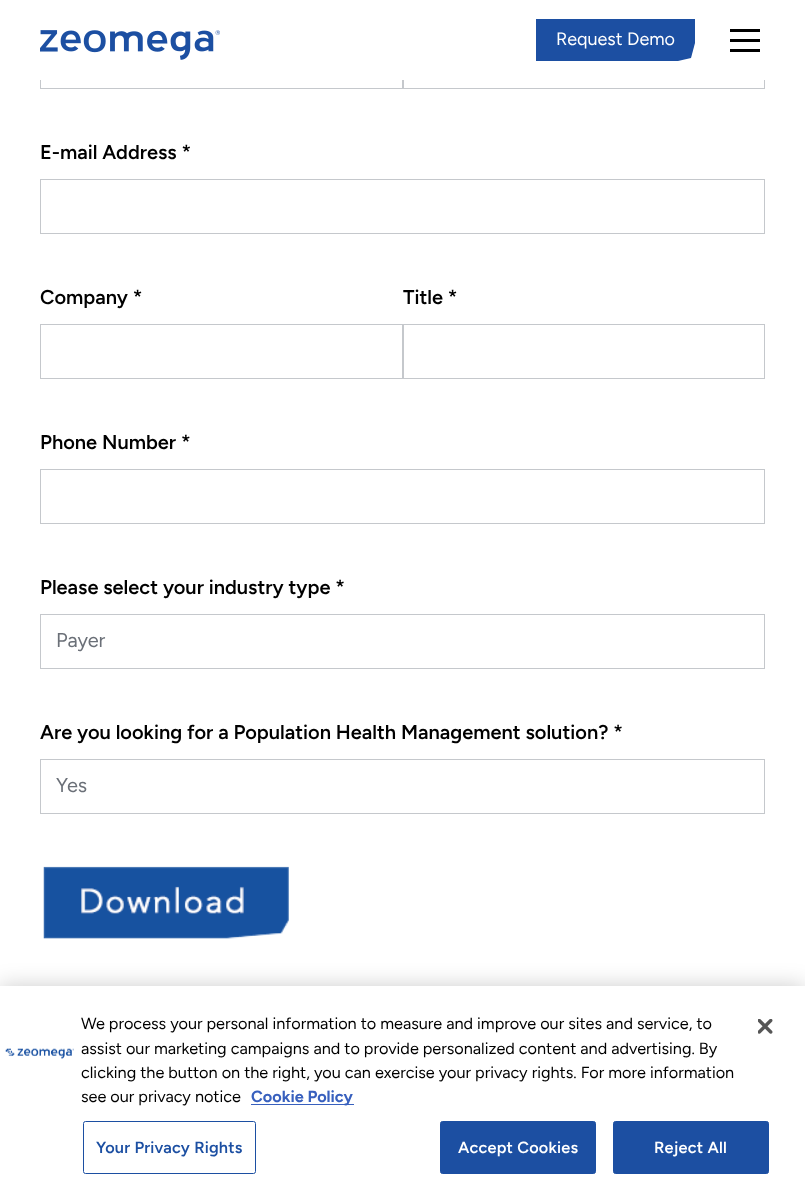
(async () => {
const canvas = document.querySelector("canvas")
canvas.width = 805
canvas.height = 1198
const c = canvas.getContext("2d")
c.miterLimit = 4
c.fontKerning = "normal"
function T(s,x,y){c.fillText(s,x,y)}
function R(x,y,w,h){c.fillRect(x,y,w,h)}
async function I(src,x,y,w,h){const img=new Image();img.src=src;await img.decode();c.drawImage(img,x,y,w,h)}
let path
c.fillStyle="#fff"
R(0,0,805,1198)
c.strokeStyle="#c5c8cc"
c.strokeRect(40.5,34.5,362,54)
c.strokeRect(403.5,34.5,361,54)
R(40,34,725,46)
await I("1.png",40,30,180,30)
c.fillStyle="#1c4fa2"
path = new Path2D("M536 19h159v24l-4 15l-13 3h-142z")
c.fill(path)
c.font="18px Figtree"
c.fillStyle="#fff"
T("Request Demo",556,45)
c.fillStyle="#000"
R(730,29,30,3)
R(730,39,30,3)
R(730,49,30,3)
c.font="600 20px Figtree"
T("E-mail Address *",40,159)
c.strokeRect(40.5,179.5,724,54)
T("Company *",40,304)
c.strokeRect(40.5,324.5,362,54)
T("Title *",403,304)
c.strokeRect(403.5,324.5,361,54)
T("Phone Number *",40,449)
c.strokeRect(40.5,469.5,724,54)
T("Please select your industry type *",40,594)
c.strokeRect(40.5,614.5,724,54)
c.font="20px Figtree"
c.fillStyle="#6b7078"
T("Payer",56,647)
c.font="600 20px Figtree"
c.fillStyle="#000"
T("Are you looking for a Population Health Management solution? *",40,739)
c.strokeRect(40.5,759.5,724,54)
c.font="20px Figtree"
c.fillStyle="#6b7078"
T("Yes",56,792)
await I("2.png",43,866,246,73)
c.fillStyle="#00000033"
c.filter="blur(11px)"
c.beginPath()
c.rect(0,986,805,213)
c.fill()
c.filter="none"
c.fillStyle="#fff"
R(0,986,805,212)
await I("3.png",5,1048,69,11)
c.font="16.25px Figtree"
c.fillStyle="#000"
T("We process your personal information to measure and improve our sites and service, to",81,1029)
T("assist our marketing campaigns and to provide personalized content and advertising. By",81,1054)
T("clicking the button on the right, you can exercise your privacy rights. For more information",81,1078)
T("see our privacy notice",81,1102)
c.fillStyle="#3860be"
R(251,1104,103,1)
c.font="bold 16.25px Figtree"
T("Cookie Policy",251,1102)
c.beginPath()
c.roundRect(83.5,1121.5,172,52,2)
c.strokeStyle="#1c4fa2"
c.stroke()
c.letterSpacing="0.2px"
c.font="600 16.25px Figtree"
c.fillStyle="#1c4fa2"
T("Your Privacy Rights",96,1153)
c.beginPath()
c.roundRect(440.5,1121.5,155,52,2)
c.fill()
c.stroke()
c.fillStyle="#fff"
T("Accept Cookies",458,1153)
c.fillStyle="#1c4fa2"
c.beginPath()
c.roundRect(613.5,1121.5,155,52,2)
c.fill()
c.stroke()
c.fillStyle="#fff"
T("Reject All",654,1153)
await I("4.png",758,1019,15,15)
})()
